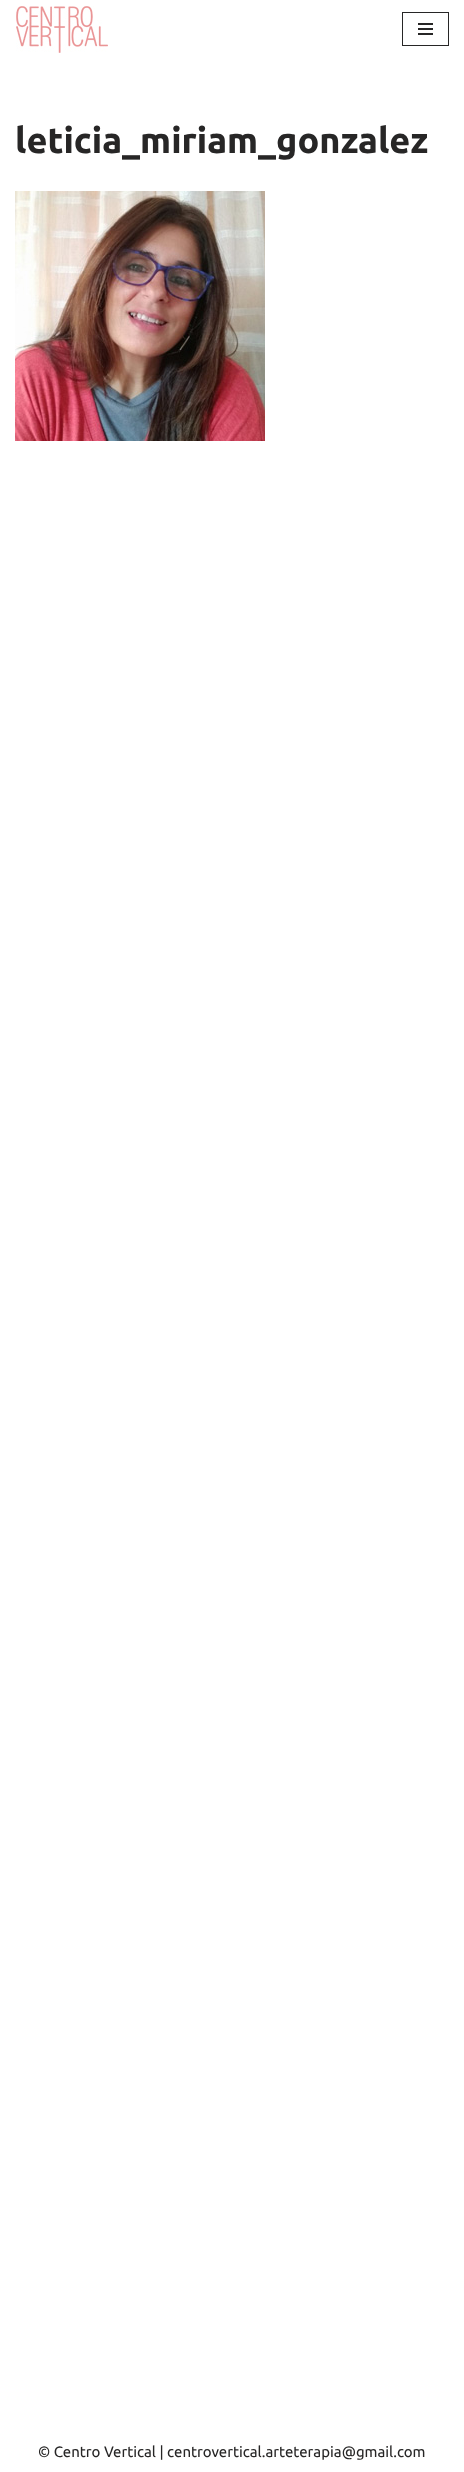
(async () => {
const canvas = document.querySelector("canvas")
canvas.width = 464
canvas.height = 2472
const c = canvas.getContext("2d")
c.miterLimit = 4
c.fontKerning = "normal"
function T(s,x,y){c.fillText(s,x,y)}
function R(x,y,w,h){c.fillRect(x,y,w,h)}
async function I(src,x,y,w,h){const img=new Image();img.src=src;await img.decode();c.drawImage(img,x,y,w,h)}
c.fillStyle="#fff"
R(0,0,464,2472)
await I("1.png",16,6,92,47)
c.strokeStyle="#272626"
c.strokeRect(402.5,12.5,46,33)
c.fillStyle="#272626"
R(418,23,15,2)
R(418,28,15,2)
R(418,33,15,2)
c.font="bold 36px Ubuntu"
T("leticia_miriam_gonzalez",15,153)
await I("2.png",15,191,250,250)
c.font="15px Ubuntu"
T("© Centro Vertical | centrovertical.arteterapia@gmail.com",38,2457)
})()
